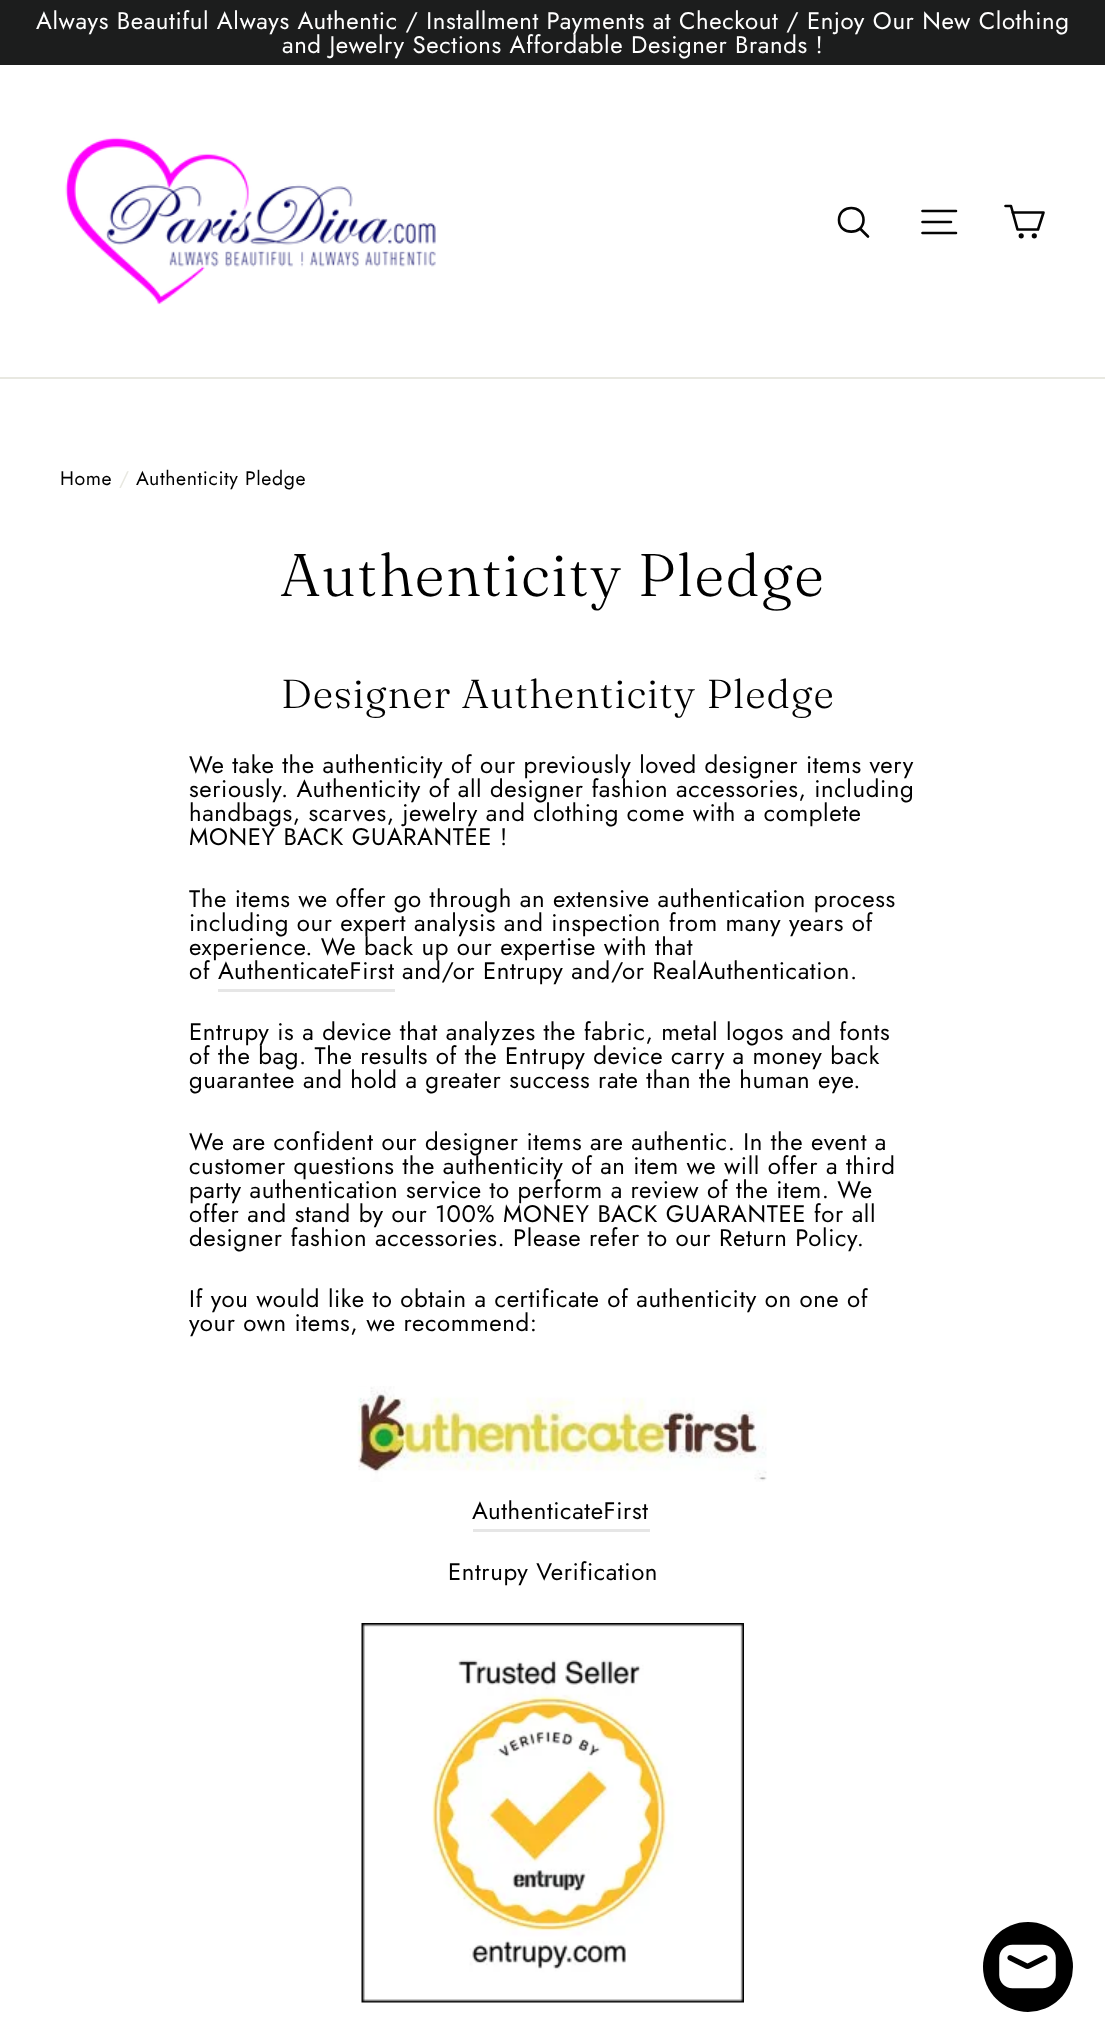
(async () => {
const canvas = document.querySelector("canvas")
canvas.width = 1105
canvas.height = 2043
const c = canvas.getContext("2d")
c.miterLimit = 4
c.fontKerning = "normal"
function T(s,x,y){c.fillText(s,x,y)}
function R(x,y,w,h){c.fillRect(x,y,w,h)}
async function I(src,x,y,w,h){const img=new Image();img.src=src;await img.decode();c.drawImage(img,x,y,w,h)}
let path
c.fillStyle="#fff"
R(0,0,1105,2043)
c.fillStyle="#1c1d1d"
R(0,0,1105,65)
c.letterSpacing="0.6px"
c.font="24px Jost"
c.fillStyle="#fff"
T("Always Beautiful Always Authentic / Installment Payments at Checkout / Enjoy Our New Clothing",36,29)
T("and Jewelry Sections Affordable Designer Brands !",282,53)
c.fillStyle="#e8e8e1"
R(0,377,1105,2)
await I("1.png",65,137,371,168)
path = new Path2D("M863.5 220c0 15.5-24.5 15.5-24.5 0c0-16 24.5-16 24.5 0zm4.5 16.5l-8-8")
c.strokeStyle="#040404"
c.lineWidth=2.6
c.lineCap="round"
c.lineJoin="round"
c.stroke(path)
path = new Path2D("M922.5 211h33.5m-33.5 11h28.5m-28.5 11h33.5")
c.stroke(path)
path = new Path2D("M1012.5 212.5h31l-5.5 17h-20.5l-6.5-23.5h-5.5")
c.stroke(path)
c.beginPath()
c.arc(1021.2,235.8,1.3,0,7)
c.stroke()
c.beginPath()
c.arc(1034.3,235.8,1.3,0,7)
c.stroke()
c.font="19.5px Jost"
c.fillStyle="#000"
T("Home",60,485)
c.fillStyle="#e8e8e1"
T("/",119,485)
c.fillStyle="#000"
T("Authenticity Pledge",136,485)
c.letterSpacing="1.5px"
c.font="300 60px Fraunces"
T("Authenticity Pledge",280,596)
c.letterSpacing="1px"
c.font="300 40.5px 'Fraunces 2'"
T("Designer Authenticity Pledge",281,708)
c.letterSpacing="0.6px"
c.font="24px Jost"
T("We take the authenticity of our previously loved designer items very",189,773)
T("seriously. Authenticity of all designer fashion accessories, including",189,797)
T("handbags, scarves, jewelry and clothing come with a complete",189,821)
T("MONEY BACK GUARANTEE !",189,845)
T("The items we offer go through an extensive authentication process",189,907)
T("including our expert analysis and inspection from many years of",189,931)
T("experience. We back up our expertise with that",189,955)
T("of AuthenticateFirst",189,979)
c.fillStyle="#e6e6e6"
R(218,989,177,3)
c.fillStyle="#000"
T("and/or Entrupy and/or RealAuthentication.",402,979)
T("Entrupy is a device that analyzes the fabric, metal logos and fonts",189,1040)
T("of the bag. The results of the Entrupy device carry a money back",189,1064)
T("guarantee and hold a greater success rate than the human eye.",189,1088)
T("We are confident our designer items are authentic. In the event a",189,1150)
T("customer questions the authenticity of an item we will offer a third",189,1174)
T("party authentication service to perform a review of the item. We",189,1198)
T("offer and stand by our 100% MONEY BACK GUARANTEE for all",189,1222)
T("designer fashion accessories. Please refer to our Return Policy.",189,1246)
T("If you would like to obtain a certificate of authenticity on one of",189,1307)
T("your own items, we recommend:",189,1331)
await I("2.png",357,1386,410,96)
T("AuthenticateFirst",472,1519)
c.fillStyle="#e6e6e6"
R(473,1529,177,3)
c.fillStyle="#000"
T("Entrupy Verification",448,1580)
await I("3.png",361,1623,383,380)
c.beginPath()
c.arc(1028,1967,45,0,7)
c.fill()
await I("4.png",999,1944,57,45)
})()
